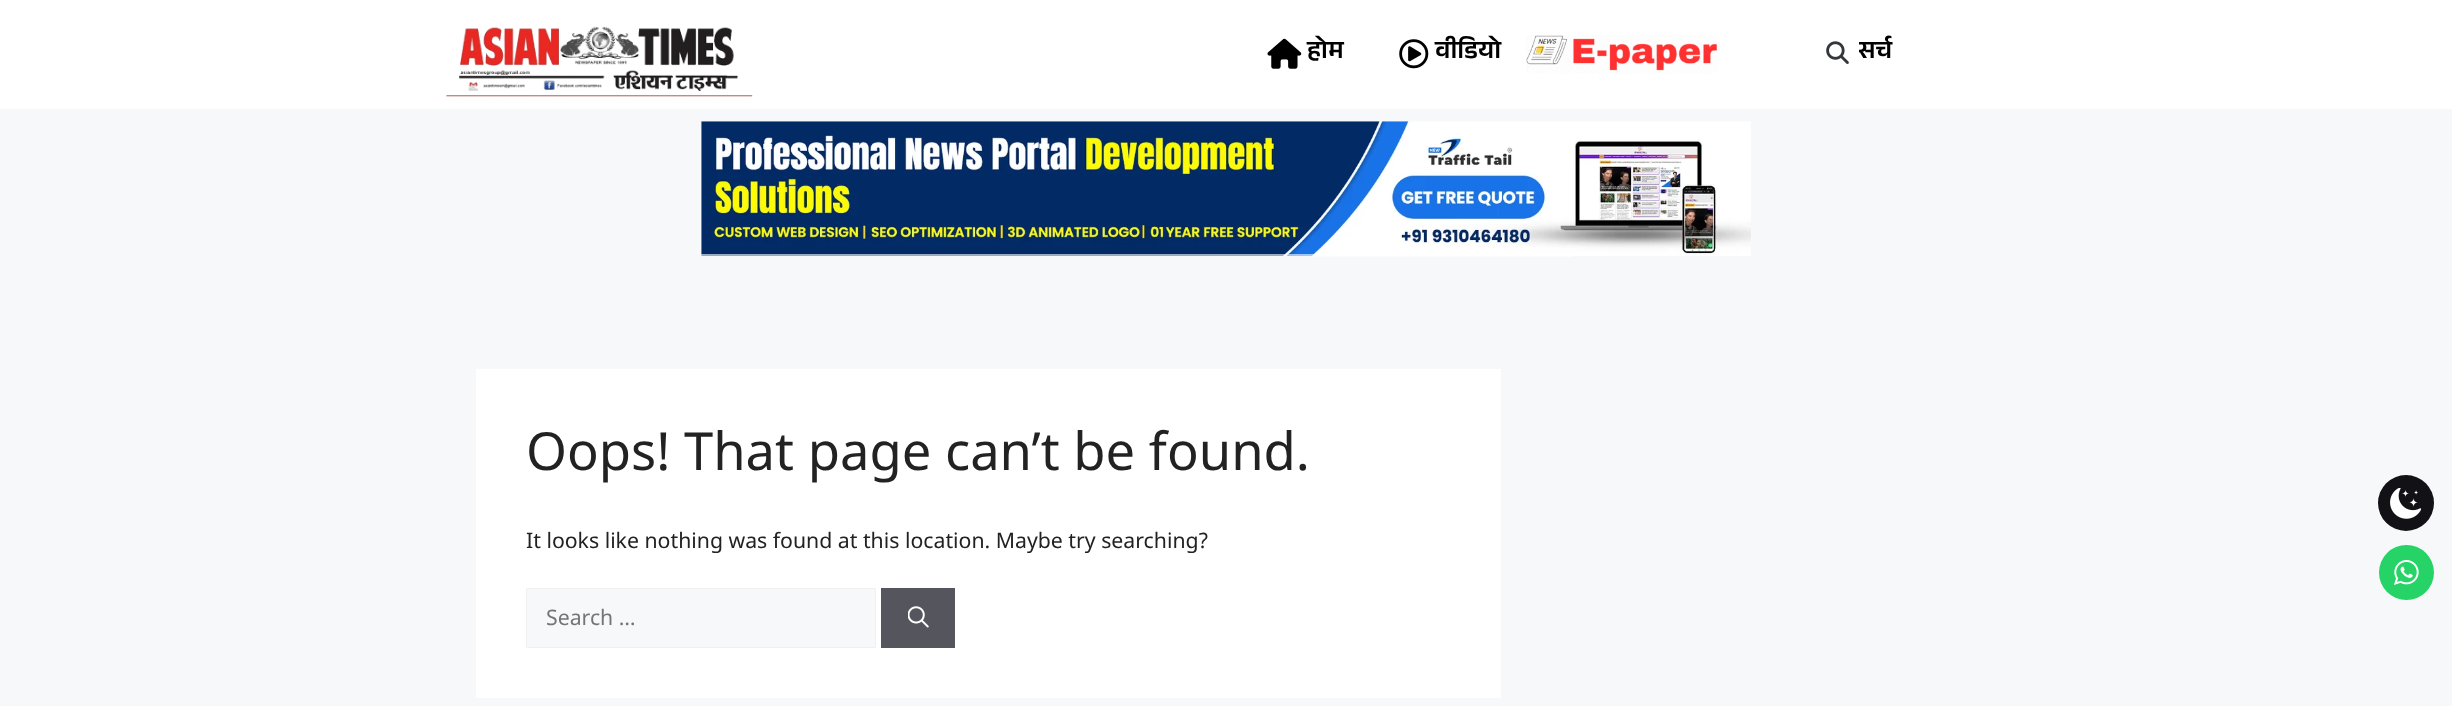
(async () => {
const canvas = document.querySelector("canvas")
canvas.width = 2452
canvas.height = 706
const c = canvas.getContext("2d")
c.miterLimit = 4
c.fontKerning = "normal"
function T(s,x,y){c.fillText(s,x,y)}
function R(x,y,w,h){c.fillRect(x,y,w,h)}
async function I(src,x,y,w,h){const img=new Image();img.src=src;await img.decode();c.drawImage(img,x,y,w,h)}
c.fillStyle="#f7f8f9"
R(0,0,2452,706)
c.fillStyle="#fff"
R(0,0,2452,109)
await I("1.png",446,26,307,71)
c.font="600 25px Anek Devanagari"
c.fillStyle="#000"
T("होम",1307,58)
await I("2.png",1267,38,35,31)
await I("3.png",1399,39,30,30)
T("वीडियो",1435,58)
await I("4.png",1526,35,193,39)
await I("5.png",1826,41,23,23)
c.save()
c.beginPath()
c.rect(1859,35,114,38)
c.clip()
T("सर्च",1858,58)
c.restore()
await I("6.png",701,121,1050,136)
c.fillStyle="#ffffff99"
R(701,254,872,3)
c.fillStyle="#fff"
R(476,369,1025,329)
c.font="52.5px Noto Sans"
c.fillStyle="#222"
T("Oops! That page can’t be found.",526,470)
c.font="21.25px Noto Sans"
T("It looks like nothing was found at this location. Maybe try searching?",526,548)
c.fillStyle="#f7f8f9"
c.beginPath()
c.rect(526.5,588.5,349,59)
c.fill()
c.strokeStyle="#f0f0f0"
c.stroke()
c.fillStyle="#757575"
T("Search …",546,625)
c.fillStyle="#55555e"
R(881,588,74,60)
await I("7.png",908,606,21,22)
c.fillStyle="#121116"
c.beginPath()
c.arc(2406,503,28,0,7)
c.fill()
await I("8.png",2390,488,31,31)
c.fillStyle="#25d366"
c.beginPath()
c.arc(2406.5,572.5,27.5,0,7)
c.fill()
await I("9.png",2394,560,25,25)
})()
